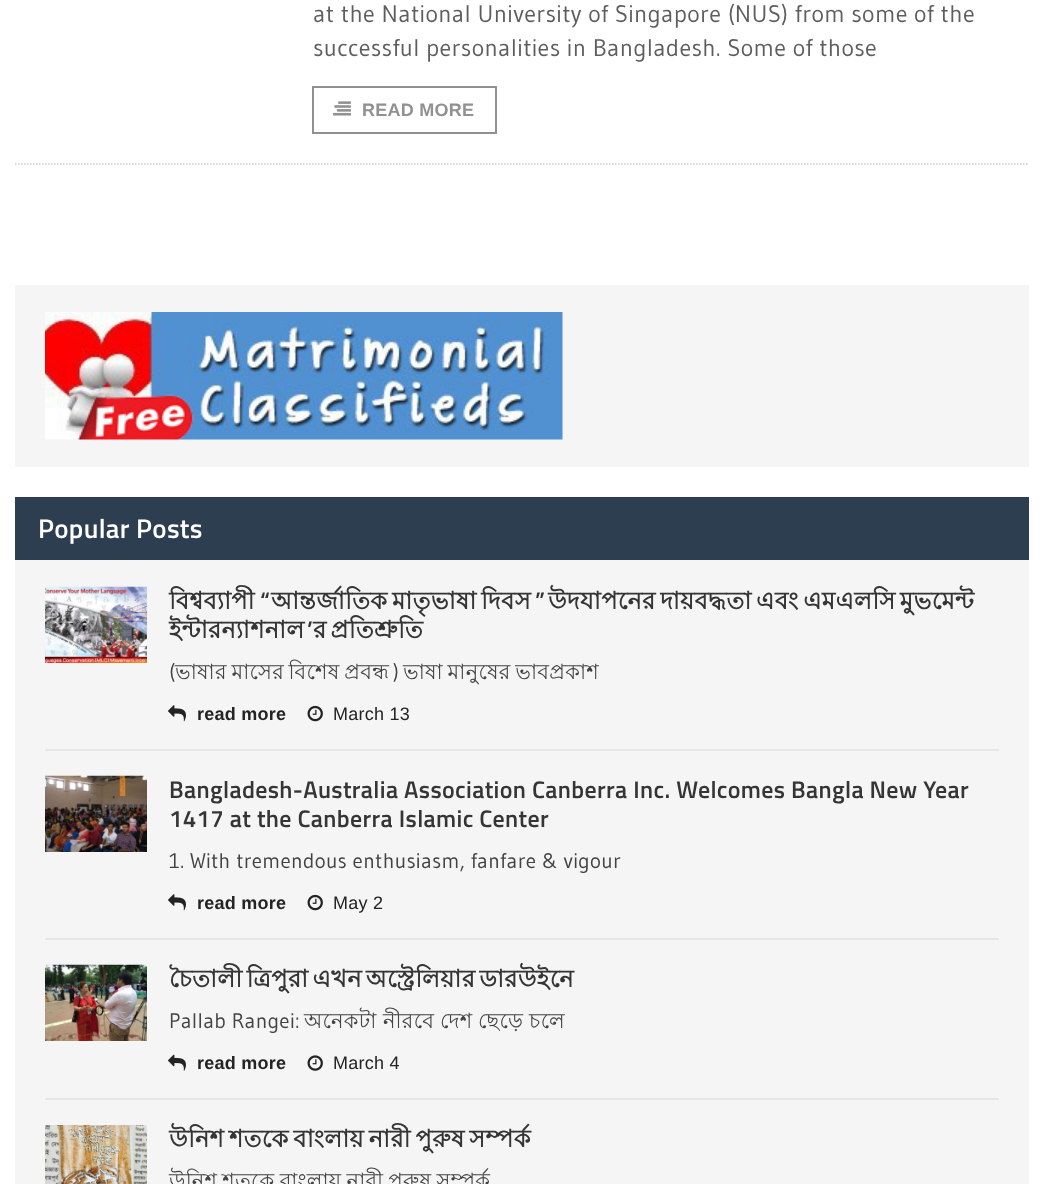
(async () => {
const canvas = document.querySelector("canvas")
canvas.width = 1043
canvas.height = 1184
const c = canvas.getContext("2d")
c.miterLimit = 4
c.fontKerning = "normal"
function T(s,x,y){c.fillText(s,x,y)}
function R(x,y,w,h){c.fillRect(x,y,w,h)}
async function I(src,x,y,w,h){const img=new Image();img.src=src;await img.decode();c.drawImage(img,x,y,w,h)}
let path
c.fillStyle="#fff"
R(0,0,1043,1184)
path = new Path2D("M15 164h1014")
c.strokeStyle="#ccc"
c.lineWidth=1.5
c.setLineDash([1.5,1.5])
c.stroke(path)
c.letterSpacing="0.35px"
c.font="24px Gudea"
c.fillStyle="#5e5e5e"
T("at the National University of Singapore (NUS) from some of the",313,22)
T("successful personalities in Bangladesh. Some of those",313,56)
c.strokeStyle="#919191"
c.lineWidth=2
c.setLineDash([])
c.strokeRect(313,87,183,46)
await I("1.png",333,101,18,15)
c.letterSpacing="0.25px"
c.font="bold 18px Liberation Sans"
c.fillStyle="#919191"
T("READ MORE",362,116)
c.fillStyle="#f5f5f5"
R(15,285,1014,182)
await I("2.png",45,312,518,128)
c.fillStyle="#2c3e50"
R(15,497,1014,63)
c.letterSpacing="0.3px"
c.font="600 27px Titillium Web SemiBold"
c.fillStyle="#fff"
T("Popular Posts",38,538)
c.fillStyle="#f5f5f5"
R(15,560,1014,624)
c.fillStyle="#e7e7e7"
R(45,749,954,2)
await I("3.png",45,586,102,77)
c.letterSpacing="0.35px"
c.font="bold 24px Lohit Bengali"
c.fillStyle="#353535"
T("বিশ্বব্যাপী",169,609)
c.font="600 24px Titillium Web SemiBold"
T("“",260,609)
c.wordSpacing="-2.5px"
c.font="bold 24px Lohit Bengali"
T("আন্তর্জাতিক মাতৃভাষা দিবস",271,609)
c.wordSpacing="0px"
c.font="600 24px Titillium Web SemiBold"
T("”",535,609)
c.wordSpacing="-2.5px"
c.font="bold 24px Lohit Bengali"
T("উদযাপনের দায়বদ্ধতা এবং এমএলসি মুভমেন্ট",548,609)
c.wordSpacing="0px"
T("ইন্টারন্যাশনাল",169,638)
c.font="600 24px Titillium Web SemiBold"
T("’",307,638)
c.wordSpacing="-3px"
c.font="bold 24px Lohit Bengali"
T("র প্রতিশ্রুতি",313,638)
c.letterSpacing="0.3px"
c.wordSpacing="0px"
c.font="21px Gudea"
c.fillStyle="#434343"
T("(",169,679)
c.wordSpacing="-1.5px"
c.font="21px Lohit Bengali"
T("ভাষার মাসের বিশেষ প্রবন্ধ",175,679)
c.wordSpacing="0px"
c.font="21px Gudea"
T(")",393,679)
c.wordSpacing="-1.5px"
c.font="21px Lohit Bengali"
T("ভাষা মানুষের ভাবপ্রকাশ",403,679)
await I("4.png",168,705,18,17)
c.letterSpacing="0.25px"
c.wordSpacing="0px"
c.font="bold 18px Liberation Sans"
c.fillStyle="#232323"
T("read more",197,720)
await I("5.png",307,705,16,17)
c.font="18px Liberation Sans"
T("March 13",333,720)
c.fillStyle="#e7e7e7"
R(45,938,954,2)
await I("6.png",45,775,102,77)
c.letterSpacing="0.35px"
c.font="600 24px Titillium Web SemiBold"
c.fillStyle="#353535"
T("Bangladesh-Australia Association Canberra Inc. Welcomes Bangla New Year",169,798)
T("1417 at the Canberra Islamic Center",169,827)
c.letterSpacing="0.3px"
c.font="21px Gudea"
c.fillStyle="#434343"
T("1. With tremendous enthusiasm, fanfare & vigour",169,868)
await I("4.png",168,894,18,17)
c.letterSpacing="0.25px"
c.font="bold 18px Liberation Sans"
c.fillStyle="#232323"
T("read more",197,909)
await I("5.png",307,894,16,17)
c.font="18px Liberation Sans"
T("May 2",333,909)
c.fillStyle="#e7e7e7"
R(45,1098,954,2)
await I("7.png",45,964,102,77)
c.letterSpacing="0.35px"
c.wordSpacing="-3px"
c.font="bold 24px Lohit Bengali"
c.fillStyle="#353535"
T("চৈতালী ত্রিপুরা এখন অস্ট্রেলিয়ার ডারউইনে",169,987)
c.letterSpacing="0.3px"
c.wordSpacing="0px"
c.font="21px Gudea"
c.fillStyle="#434343"
T("Pallab Rangei:",169,1028)
c.font="21px Lohit Bengali"
T("অনেকটা",304,1028)
T("নীরবে",383,1028)
T("দেশ",440,1028)
T("ছেড়ে",478,1028)
T("চলে",529,1028)
await I("8.png",168,1054,18,17)
c.letterSpacing="0.25px"
c.font="bold 18px Liberation Sans"
c.fillStyle="#232323"
T("read more",197,1069)
await I("9.png",307,1055,16,16)
c.font="18px Liberation Sans"
T("March 4",333,1069)
await I("10.png",45,1125,102,59)
c.letterSpacing="0.35px"
c.wordSpacing="-2.25px"
c.font="bold 24px Lohit Bengali"
c.fillStyle="#353535"
T("উনিশ শতকে বাংলায় নারী পুরুষ সম্পর্ক",169,1147)
c.letterSpacing="0.3px"
c.wordSpacing="-1px"
c.font="21px Lohit Bengali"
c.fillStyle="#434343"
T("উনিশ শতকে বাংলায় নারী পুরুষ সম্পর্ক",169,1188)
})()
